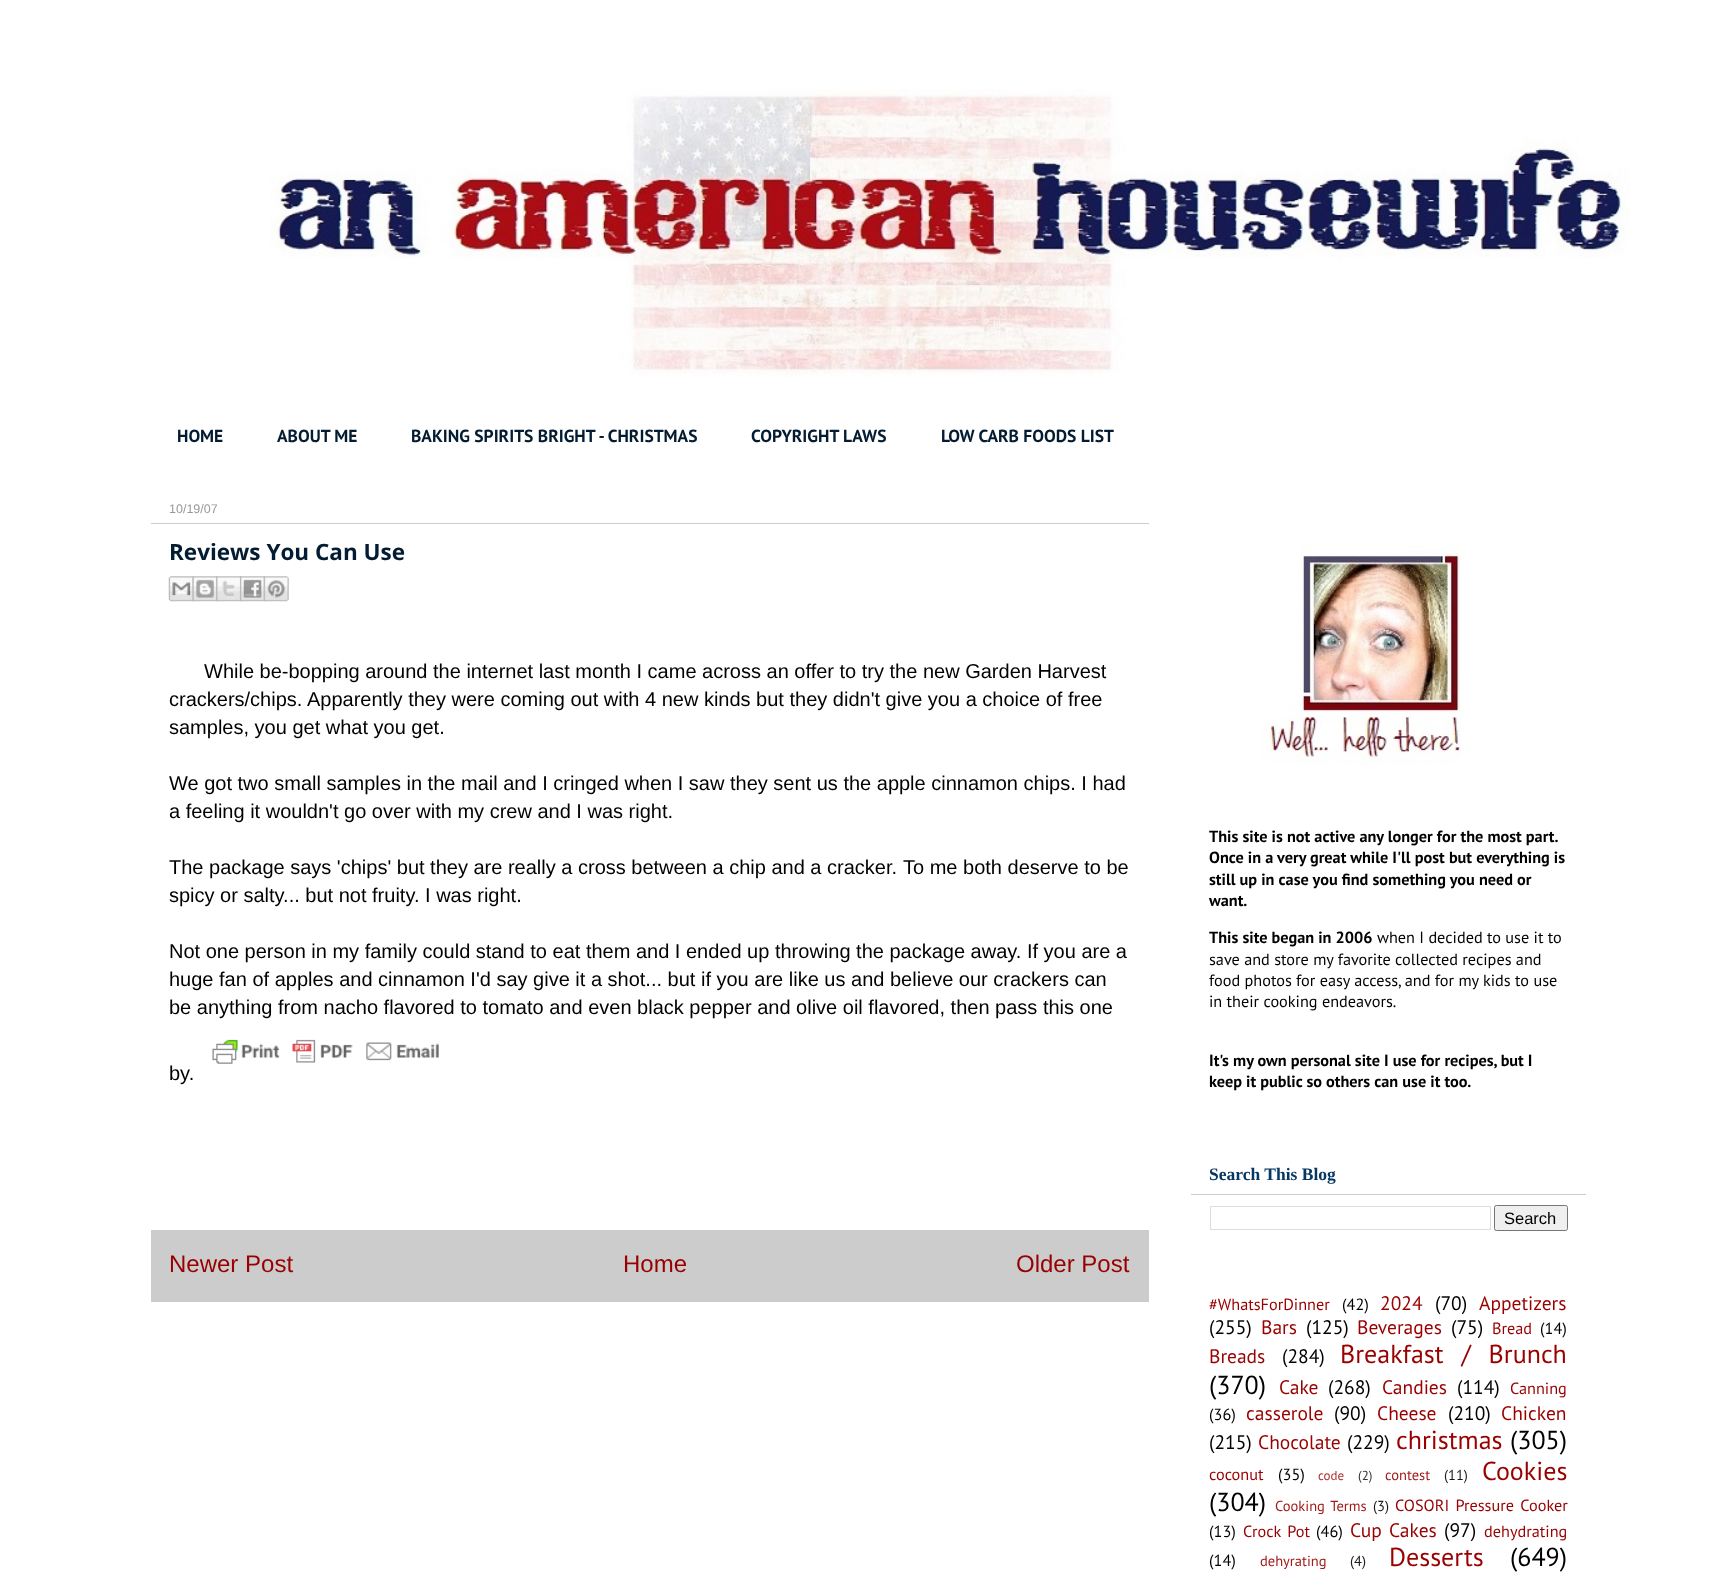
(async () => {
const canvas = document.querySelector("canvas")
canvas.width = 1736
canvas.height = 1584
const c = canvas.getContext("2d")
c.miterLimit = 4
c.fontKerning = "normal"
function T(s,x,y){c.fillText(s,x,y)}
function R(x,y,w,h){c.fillRect(x,y,w,h)}
async function I(src,x,y,w,h){const img=new Image();img.src=src;await img.decode();c.drawImage(img,x,y,w,h)}
c.fillStyle="#fff"
R(0,0,1736,1584)
await I("1.png",270,89,1360,288)
c.font="bold 17.5px PT Sans"
c.fillStyle="#041c32"
T("HOME",177,442)
T("ABOUT ME",277,442)
T("BAKING SPIRITS BRIGHT - CHRISTMAS",411,442)
T("COPYRIGHT LAWS",751,442)
T("LOW CARB FOODS LIST",941,442)
c.fillStyle="#ccc"
R(151,523,998,1)
c.font="12.5px Liberation Sans"
c.fillStyle="#999"
T("10/19/07",169,513)
c.font="bold 22.5px Open Sans"
c.fillStyle="#041c32"
T("Reviews You Can Use",169,560)
await I("2.png",168,576,26,26)
await I("3.png",192,576,26,26)
await I("4.png",216,576,26,26)
await I("5.png",240,576,25,26)
await I("6.png",263,576,26,26)
c.font="20px Liberation Sans"
c.fillStyle="#000"
T("While be-bopping around the internet last month I came across an offer to try the new Garden Harvest",204,678)
T("crackers/chips.",169,706)
T("Apparently they were coming out with 4 new kinds but they didn't give you a choice of free",307,706)
T("samples, you get what you get.",169,734)
T("We got two small samples in the mail and I cringed when I saw they sent us the apple cinnamon chips. I had",169,790)
T("a feeling it wouldn't go over with my crew and I was right.",169,818)
T("The package says 'chips' but they are really a cross between a chip and a cracker.",169,874)
T("To me both deserve to be",903,874)
T("spicy or salty... but not fruity. I was right.",169,902)
T("Not one person in my family could stand to eat them and I ended up throwing the package away. If you are a",169,958)
T("huge fan of apples and cinnamon I'd say give it a shot... but if you are like us and believe our crackers can",169,986)
T("be anything from nacho flavored to tomato and even black pepper and olive oil flavored, then pass this one",169,1014)
await I("7.png",212,1039,227,25)
T("by.",169,1080)
c.fillStyle="#ccc"
R(151,1230,998,72)
c.font="24px Liberation Sans"
c.fillStyle="#900"
T("Newer Post",169,1272)
T("Home",623,1272)
T("Older Post",1016,1272)
await I("8.png",1261,545,200,220)
c.font="bold 16.25px PT Sans"
c.fillStyle="#000"
T("This site is not active any longer for the most part.",1209,842)
T("Once in a very great while I'll post but everything is",1209,863)
T("still up in case you find something you need or",1209,885)
T("want.",1209,906)
T("This site began in 2006",1209,943)
c.font="16.25px PT Sans"
T("when I decided to use it to",1377,943)
T("save and store my favorite collected recipes and",1209,965)
T("food photos for easy access, and for my kids to use",1209,986)
T("in their cooking endeavors.",1209,1007)
c.font="bold 16.25px PT Sans"
T("It's my own personal site I use for recipes, but I",1209,1066)
T("keep it public so others can use it too.",1209,1087)
c.fillStyle="#ccc"
R(1191,1194,395,1)
c.font="bold 17.5px Liberation Serif"
c.fillStyle="#073763"
T("Search This Blog",1209,1180)
c.strokeStyle="#ddd"
c.strokeRect(1210.5,1206.5,280,23)
c.fillStyle="#efefef"
c.beginPath()
c.roundRect(1494.5,1205.5,73,25,2)
c.fill()
c.strokeStyle="#767676"
c.stroke()
c.font="16.5px Liberation Sans"
c.fillStyle="#000"
T("Search",1504,1224)
c.font="16.25px PT Sans"
c.fillStyle="#900"
T("#WhatsForDinner",1209,1310)
c.fillStyle="#000"
T("(42)",1342,1310)
c.font="19.5px PT Sans"
c.fillStyle="#900"
T("2024",1380,1310)
c.fillStyle="#000"
T("(70)",1435,1310)
c.fillStyle="#900"
T("Appetizers",1479,1310)
c.fillStyle="#000"
T("(255)",1209,1334)
c.fillStyle="#900"
T("Bars",1261,1334)
c.fillStyle="#000"
T("(125)",1306,1334)
c.fillStyle="#900"
T("Beverages",1357,1334)
c.fillStyle="#000"
T("(75)",1451,1334)
c.font="16.25px PT Sans"
c.fillStyle="#900"
T("Bread",1492,1334)
c.fillStyle="#000"
T("(14)",1540,1334)
c.font="19.5px PT Sans"
c.fillStyle="#900"
T("Breads",1209,1363)
c.fillStyle="#000"
T("(284)",1282,1363)
c.wordSpacing="11px"
c.font="26px PT Sans"
c.fillStyle="#900"
T("Breakfast / Brunch",1340,1363)
c.wordSpacing="0px"
c.fillStyle="#000"
T("(370)",1209,1394)
c.font="19.5px PT Sans"
c.fillStyle="#900"
T("Cake",1279,1394)
c.fillStyle="#000"
T("(268)",1328,1394)
c.fillStyle="#900"
T("Candies",1382,1394)
c.fillStyle="#000"
T("(114)",1457,1394)
c.font="16.25px PT Sans"
c.fillStyle="#900"
T("Canning",1510,1394)
c.fillStyle="#000"
T("(36)",1209,1420)
c.font="19.5px PT Sans"
c.fillStyle="#900"
T("casserole",1246,1420)
c.fillStyle="#000"
T("(90)",1334,1420)
c.fillStyle="#900"
T("Cheese",1377,1420)
c.fillStyle="#000"
T("(210)",1448,1420)
c.fillStyle="#900"
T("Chicken",1501,1420)
c.fillStyle="#000"
T("(215)",1209,1449)
c.fillStyle="#900"
T("Chocolate",1258,1449)
c.fillStyle="#000"
T("(229)",1347,1449)
c.font="26px PT Sans"
c.fillStyle="#900"
T("christmas",1396,1449)
c.fillStyle="#000"
T("(305)",1510,1449)
c.font="16.25px PT Sans"
c.fillStyle="#900"
T("coconut",1209,1480)
c.fillStyle="#000"
T("(35)",1278,1480)
c.font="13px PT Sans"
c.fillStyle="#ad3333"
T("code",1318,1480)
c.fillStyle="#333"
T("(2)",1358,1480)
c.font="14.5px PT Sans"
c.fillStyle="#a31a1a"
T("contest",1385,1480)
c.fillStyle="#1a1a1a"
T("(11)",1444,1480)
c.font="26px PT Sans"
c.fillStyle="#900"
T("Cookies",1482,1480)
c.fillStyle="#000"
T("(304)",1209,1511)
c.wordSpacing="2px"
c.font="14.5px PT Sans"
c.fillStyle="#a31a1a"
T("Cooking Terms",1275,1511)
c.wordSpacing="0px"
c.fillStyle="#1a1a1a"
T("(3)",1373,1511)
c.wordSpacing="2px"
c.font="16.25px PT Sans"
c.fillStyle="#900"
T("COSORI Pressure Cooker",1395,1511)
c.wordSpacing="0px"
c.fillStyle="#000"
T("(13)",1209,1537)
c.wordSpacing="2px"
c.fillStyle="#900"
T("Crock Pot",1243,1537)
c.wordSpacing="0px"
c.fillStyle="#000"
T("(46)",1316,1537)
c.wordSpacing="2px"
c.font="19.5px PT Sans"
c.fillStyle="#900"
T("Cup Cakes",1350,1537)
c.wordSpacing="0px"
c.fillStyle="#000"
T("(97)",1444,1537)
c.font="16.25px PT Sans"
c.fillStyle="#900"
T("dehydrating",1484,1537)
c.fillStyle="#000"
T("(14)",1209,1566)
c.font="14.5px PT Sans"
c.fillStyle="#a31a1a"
T("dehyrating",1260,1566)
c.fillStyle="#1a1a1a"
T("(4)",1350,1566)
c.font="26px PT Sans"
c.fillStyle="#900"
T("Desserts",1389,1566)
c.fillStyle="#000"
T("(649)",1510,1566)
})()
